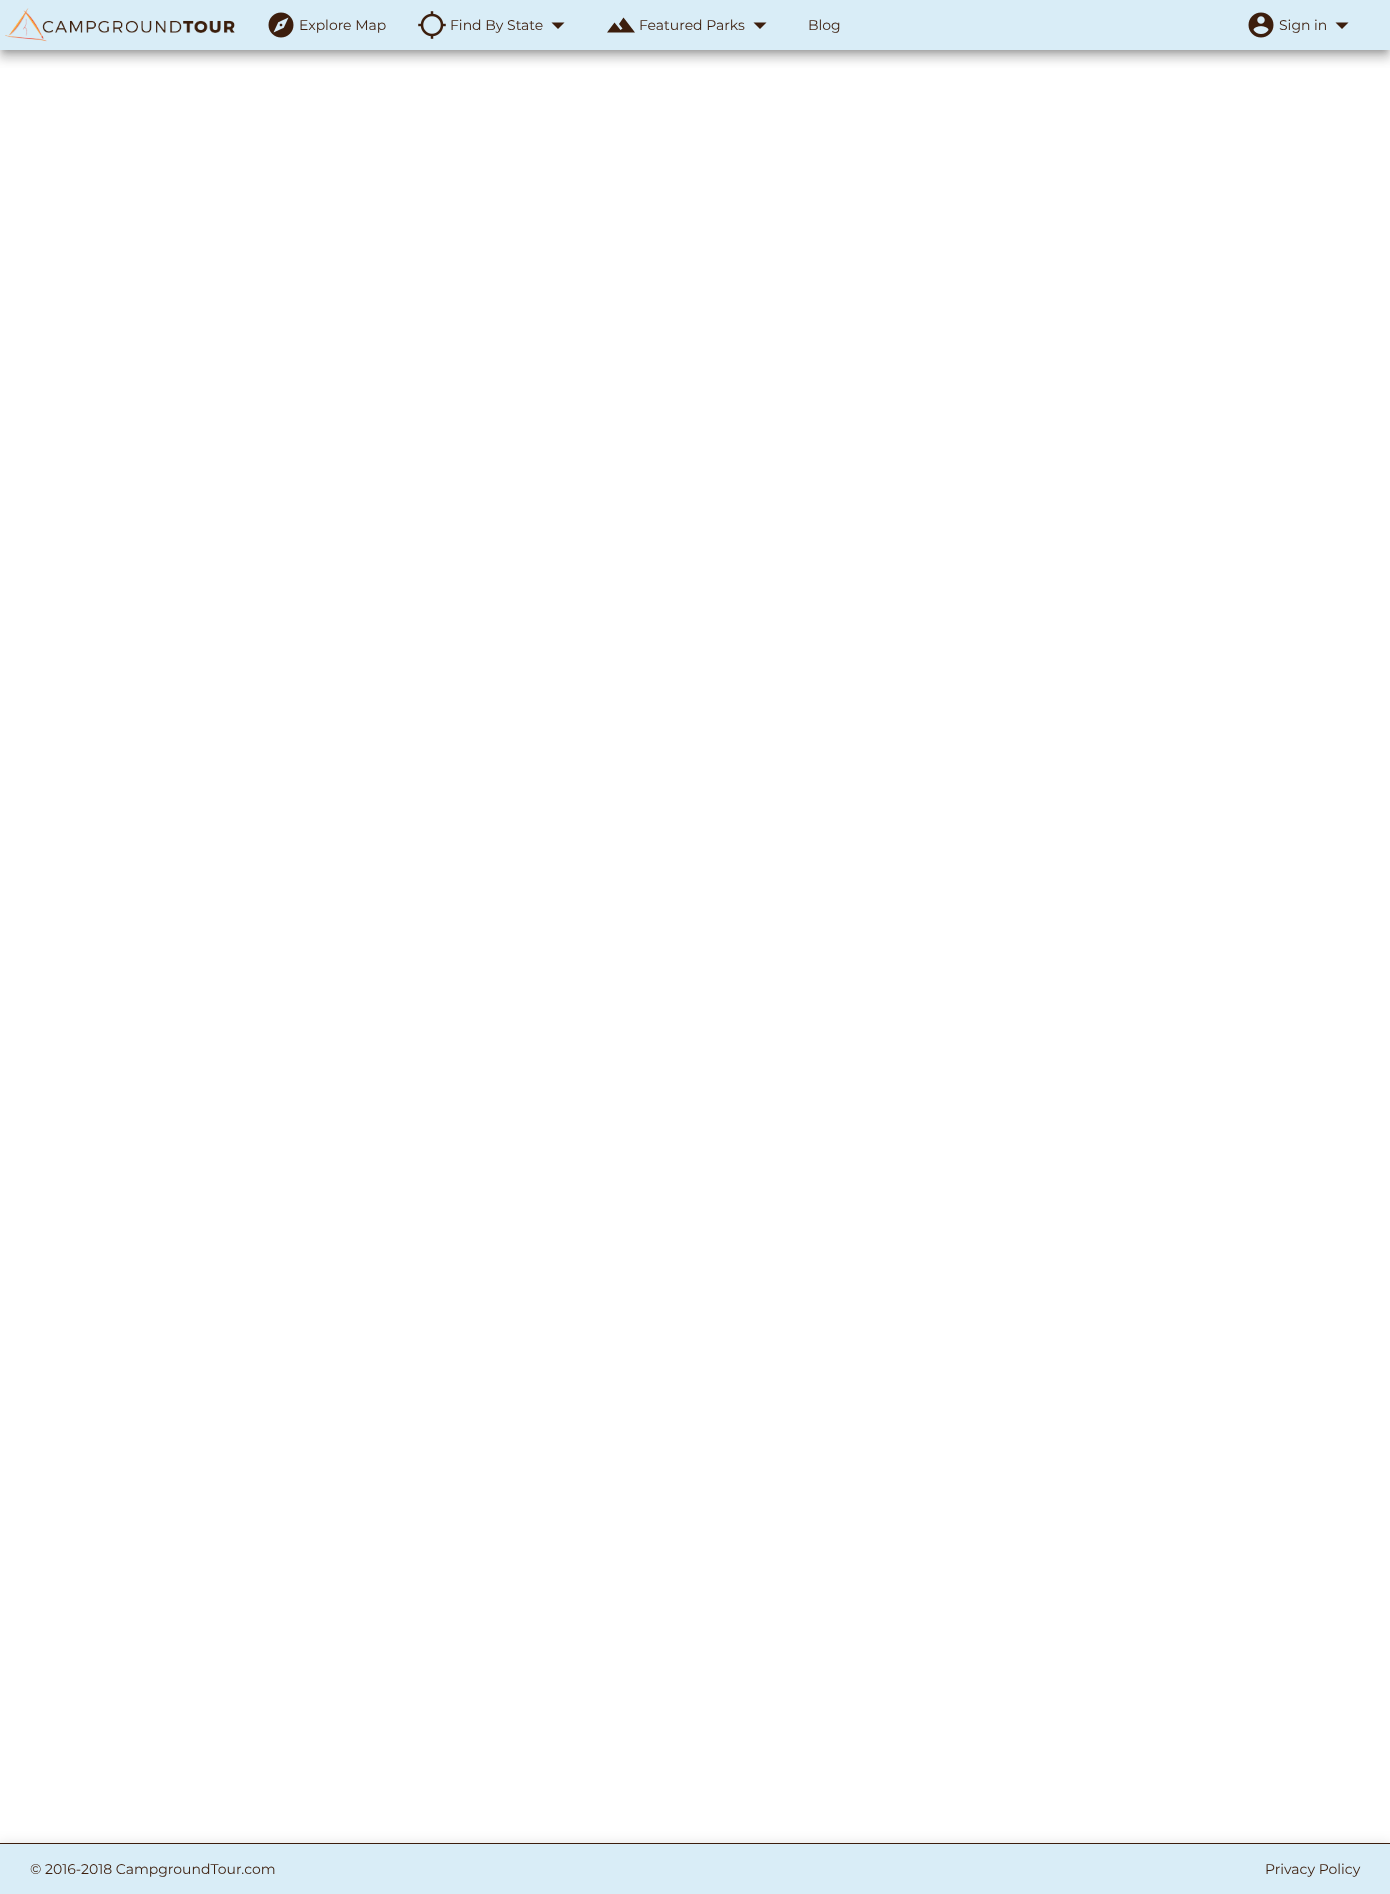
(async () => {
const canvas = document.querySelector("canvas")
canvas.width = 1390
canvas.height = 1894
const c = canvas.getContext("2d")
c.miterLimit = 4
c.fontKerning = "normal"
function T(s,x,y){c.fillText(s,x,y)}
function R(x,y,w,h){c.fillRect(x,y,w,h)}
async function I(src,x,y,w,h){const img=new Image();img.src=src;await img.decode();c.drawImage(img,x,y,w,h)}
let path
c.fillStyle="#fff"
R(0,0,1390,1894)
c.fillStyle="#0000001f"
c.filter="blur(7px)"
c.beginPath()
c.rect(-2,1,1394,54)
c.fill()
c.filter="none"
c.fillStyle="#00000024"
c.filter="blur(5px)"
c.beginPath()
c.rect(-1,7,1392,52)
c.fill()
c.filter="none"
c.fillStyle="#00000033"
c.filter="blur(2.5px)"
c.beginPath()
c.rect(3,8,1384,44)
c.fill()
c.filter="none"
c.fillStyle="#d9edf7"
R(0,0,1390,50)
await I("1.png",5,8,230,34)
await I("2.png",268,12,26,26)
c.font="100 14px Montserrat"
c.fillStyle="#3c1e0d"
T("Explore Map",299,30)
await I("3.png",418,11,28,28)
T("Find By State",450,30)
path = new Path2D("M551.5 22.5h13l-6.5 6.5z")
c.fill(path)
path = new Path2D("M623.5 17.5l11.5 15h-28l7.5-10l6 7.5l2-1.5l-3.5-4.5z")
c.fill(path)
T("Featured Parks",639,30)
path = new Path2D("M753.5 22.5h13l-6.5 6.5z")
c.fill(path)
T("Blog",808,30)
await I("4.png",1248,12,26,26)
T("Sign in",1279,30)
path = new Path2D("M1335.5 22.5h13l-6.5 6.5z")
c.fill(path)
c.fillStyle="#0000001f"
c.filter="blur(7px)"
c.beginPath()
c.rect(-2,1844,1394,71)
c.fill()
c.filter="none"
c.fillStyle="#d9edf7"
R(0,1844,1390,50)
c.fillStyle="#3c1e0d"
R(0,1843,1390,1)
T("© 2016-2018 CampgroundTour.com",30,1874)
T("Privacy Policy",1265,1874)
})()
